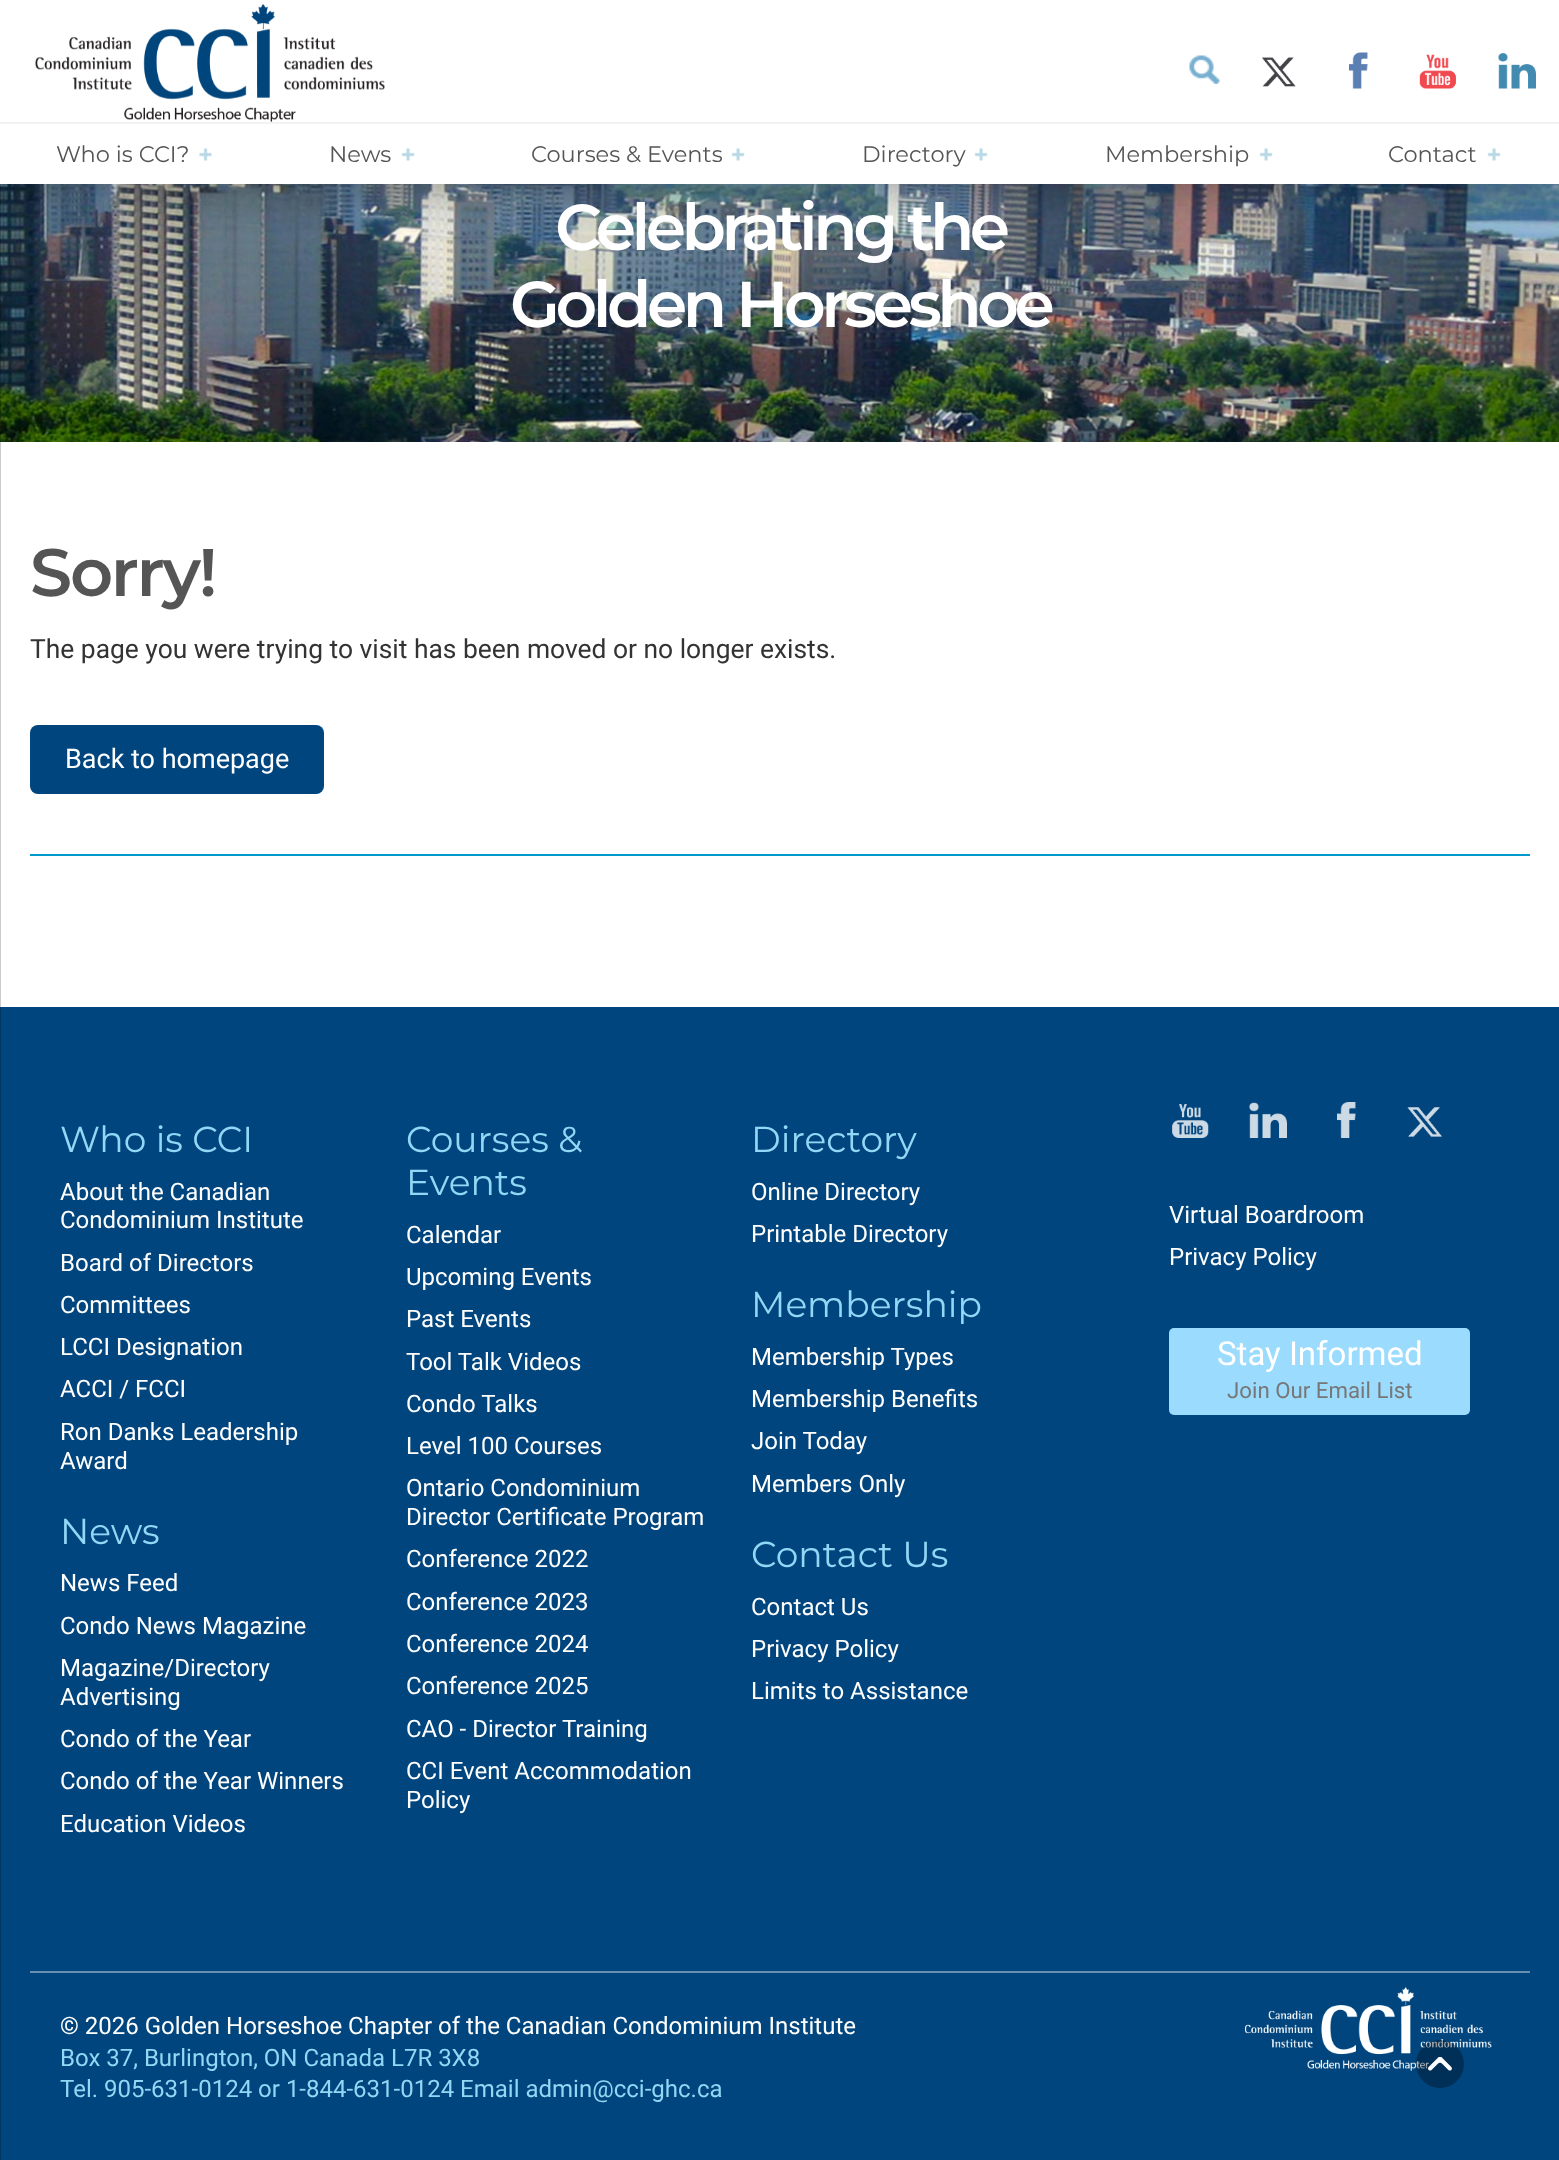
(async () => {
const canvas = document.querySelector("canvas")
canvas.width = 1559
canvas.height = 2160
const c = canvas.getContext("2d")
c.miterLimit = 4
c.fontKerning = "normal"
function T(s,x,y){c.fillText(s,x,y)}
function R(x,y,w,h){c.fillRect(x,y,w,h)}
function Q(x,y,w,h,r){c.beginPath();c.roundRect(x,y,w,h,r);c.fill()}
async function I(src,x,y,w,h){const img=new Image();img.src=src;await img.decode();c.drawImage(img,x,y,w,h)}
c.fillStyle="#fff"
R(0,0,1559,2160)
await I("9.png",0,184,1559,258)
c.fillStyle="#00457d"
R(0,1007,1559,1153)
c.fillStyle="#00000033"
R(0,184,1,1976)
c.fillStyle="#00000066"
c.filter="blur(24px)"
c.beginPath()
c.rect(0,2,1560,183)
c.fill()
c.filter="none"
c.fillStyle="#fff"
R(0,0,1559,184)
await I("1.png",35,4,350,118)
await I("2.png",1189,55,31,29)
await I("3.png",1262,57,34,30)
await I("4.png",1349,52,19,37)
await I("5.png",1419,54,37,35)
await I("6.png",1498,53,38,36)
c.fillStyle="#f2f2f2"
R(0,122,1559,2)
c.font="22.5px Montserrat"
c.fillStyle="#555"
T("Who is CCI?",56,162)
await I("7.png",199,148,13,13)
T("News",329,162)
await I("8.png",401,148,14,13)
T("Courses & Events",531,162)
await I("8.png",731,148,14,13)
T("Directory",862,162)
await I("8.png",974,148,14,13)
T("Membership",1105,162)
await I("8.png",1259,148,14,13)
T("Contact",1388,162)
await I("8.png",1487,148,14,13)
c.letterSpacing="-4.5px"
c.font="600 64.75px Montserrat"
c.fillStyle="#fff"
T("Celebrating the",555,250)
T("Golden Horseshoe",510,327)
c.letterSpacing="-2.25px"
c.font="600 67px Montserrat"
c.fillStyle="#555"
T("Sorry!",30,596)
c.letterSpacing="0px"
c.font="26.4px Roboto"
c.fillStyle="#333"
T("The page you were trying to visit has been moved or no longer exists.",30,658)
c.fillStyle="#00457d"
Q(30,725,294,69,8)
c.font="27px Roboto"
c.fillStyle="#fff"
T("Back to homepage",65,768)
c.fillStyle="#09c"
R(30,854,1500,2)
c.font="36px Montserrat"
c.fillStyle="#92d7f5"
T("Who is CCI",60,1152)
c.font="24px Roboto"
c.fillStyle="#fff"
T("About the Canadian",60,1200)
T("Condominium Institute",60,1228)
T("Board of Directors",60,1271)
T("Committees",60,1313)
T("LCCI Designation",60,1355)
T("ACCI / FCCI",60,1397)
T("Ron Danks Leadership",60,1440)
T("Award",60,1469)
c.font="36px Montserrat"
c.fillStyle="#92d7f5"
T("News",60,1544)
c.font="24px Roboto"
c.fillStyle="#fff"
T("News Feed",60,1591)
T("Condo News Magazine",60,1634)
T("Magazine/Directory",60,1676)
T("Advertising",60,1705)
T("Condo of the Year",60,1747)
T("Condo of the Year Winners",60,1789)
T("Education Videos",60,1832)
c.font="36px Montserrat"
c.fillStyle="#92d7f5"
T("Courses &",406,1152)
T("Events",406,1195)
c.font="24px Roboto"
c.fillStyle="#fff"
T("Calendar",406,1243)
T("Upcoming Events",406,1285)
T("Past Events",406,1327)
T("Tool Talk Videos",406,1370)
T("Condo Talks",406,1412)
T("Level 100 Courses",406,1454)
T("Ontario Condominium",406,1496)
T("Director Certificate Program",406,1525)
T("Conference 2022",406,1567)
T("Conference 2023",406,1610)
T("Conference 2024",406,1652)
T("Conference 2025",406,1694)
T("CAO - Director Training",406,1737)
T("CCI Event Accommodation",406,1779)
T("Policy",406,1808)
c.font="36px Montserrat"
c.fillStyle="#92d7f5"
T("Directory",751,1152)
c.font="24px Roboto"
c.fillStyle="#fff"
T("Online Directory",751,1200)
T("Printable Directory",751,1242)
c.font="36px Montserrat"
c.fillStyle="#92d7f5"
T("Membership",751,1317)
c.font="24px Roboto"
c.fillStyle="#fff"
T("Membership Types",751,1365)
T("Membership Benefits",751,1407)
T("Join Today",751,1449)
T("Members Only",751,1492)
c.font="36px Montserrat"
c.fillStyle="#92d7f5"
T("Contact Us",751,1567)
c.font="24px Roboto"
c.fillStyle="#fff"
T("Contact Us",751,1615)
T("Privacy Policy",751,1657)
T("Limits to Assistance",751,1699)
await I("10.png",1172,1104,37,34)
await I("11.png",1249,1102,38,36)
await I("12.png",1337,1102,19,36)
await I("13.png",1407,1107,35,30)
T("Virtual Boardroom",1169,1223)
T("Privacy Policy",1169,1265)
c.fillStyle="#9bdbfd"
Q(1169,1328,301,87,5)
c.font="33px Roboto"
c.fillStyle="#fff"
T("Stay Informed",1217,1365)
c.font="22.25px Roboto"
c.fillStyle="#777"
T("Join Our Email List",1227,1398)
c.fillStyle="#668fb1"
R(30,1971,1500,2)
c.font="24px Roboto"
c.fillStyle="#fff"
T("© 2026 Golden Horseshoe Chapter of the Canadian Condominium Institute",60,2034)
c.fillStyle="#92d7f5"
T("Box 37, Burlington, ON Canada L7R 3X8",60,2066)
T("Tel. 905-631-0124 or 1-844-631-0124 Email admin@cci-ghc.ca",60,2097)
await I("14.png",1245,1987,247,84)
c.fillStyle="#0000004d"
c.beginPath()
c.arc(1440,2064,24,0,7)
c.fill()
await I("15.png",1428,2057,24,14)
})()
